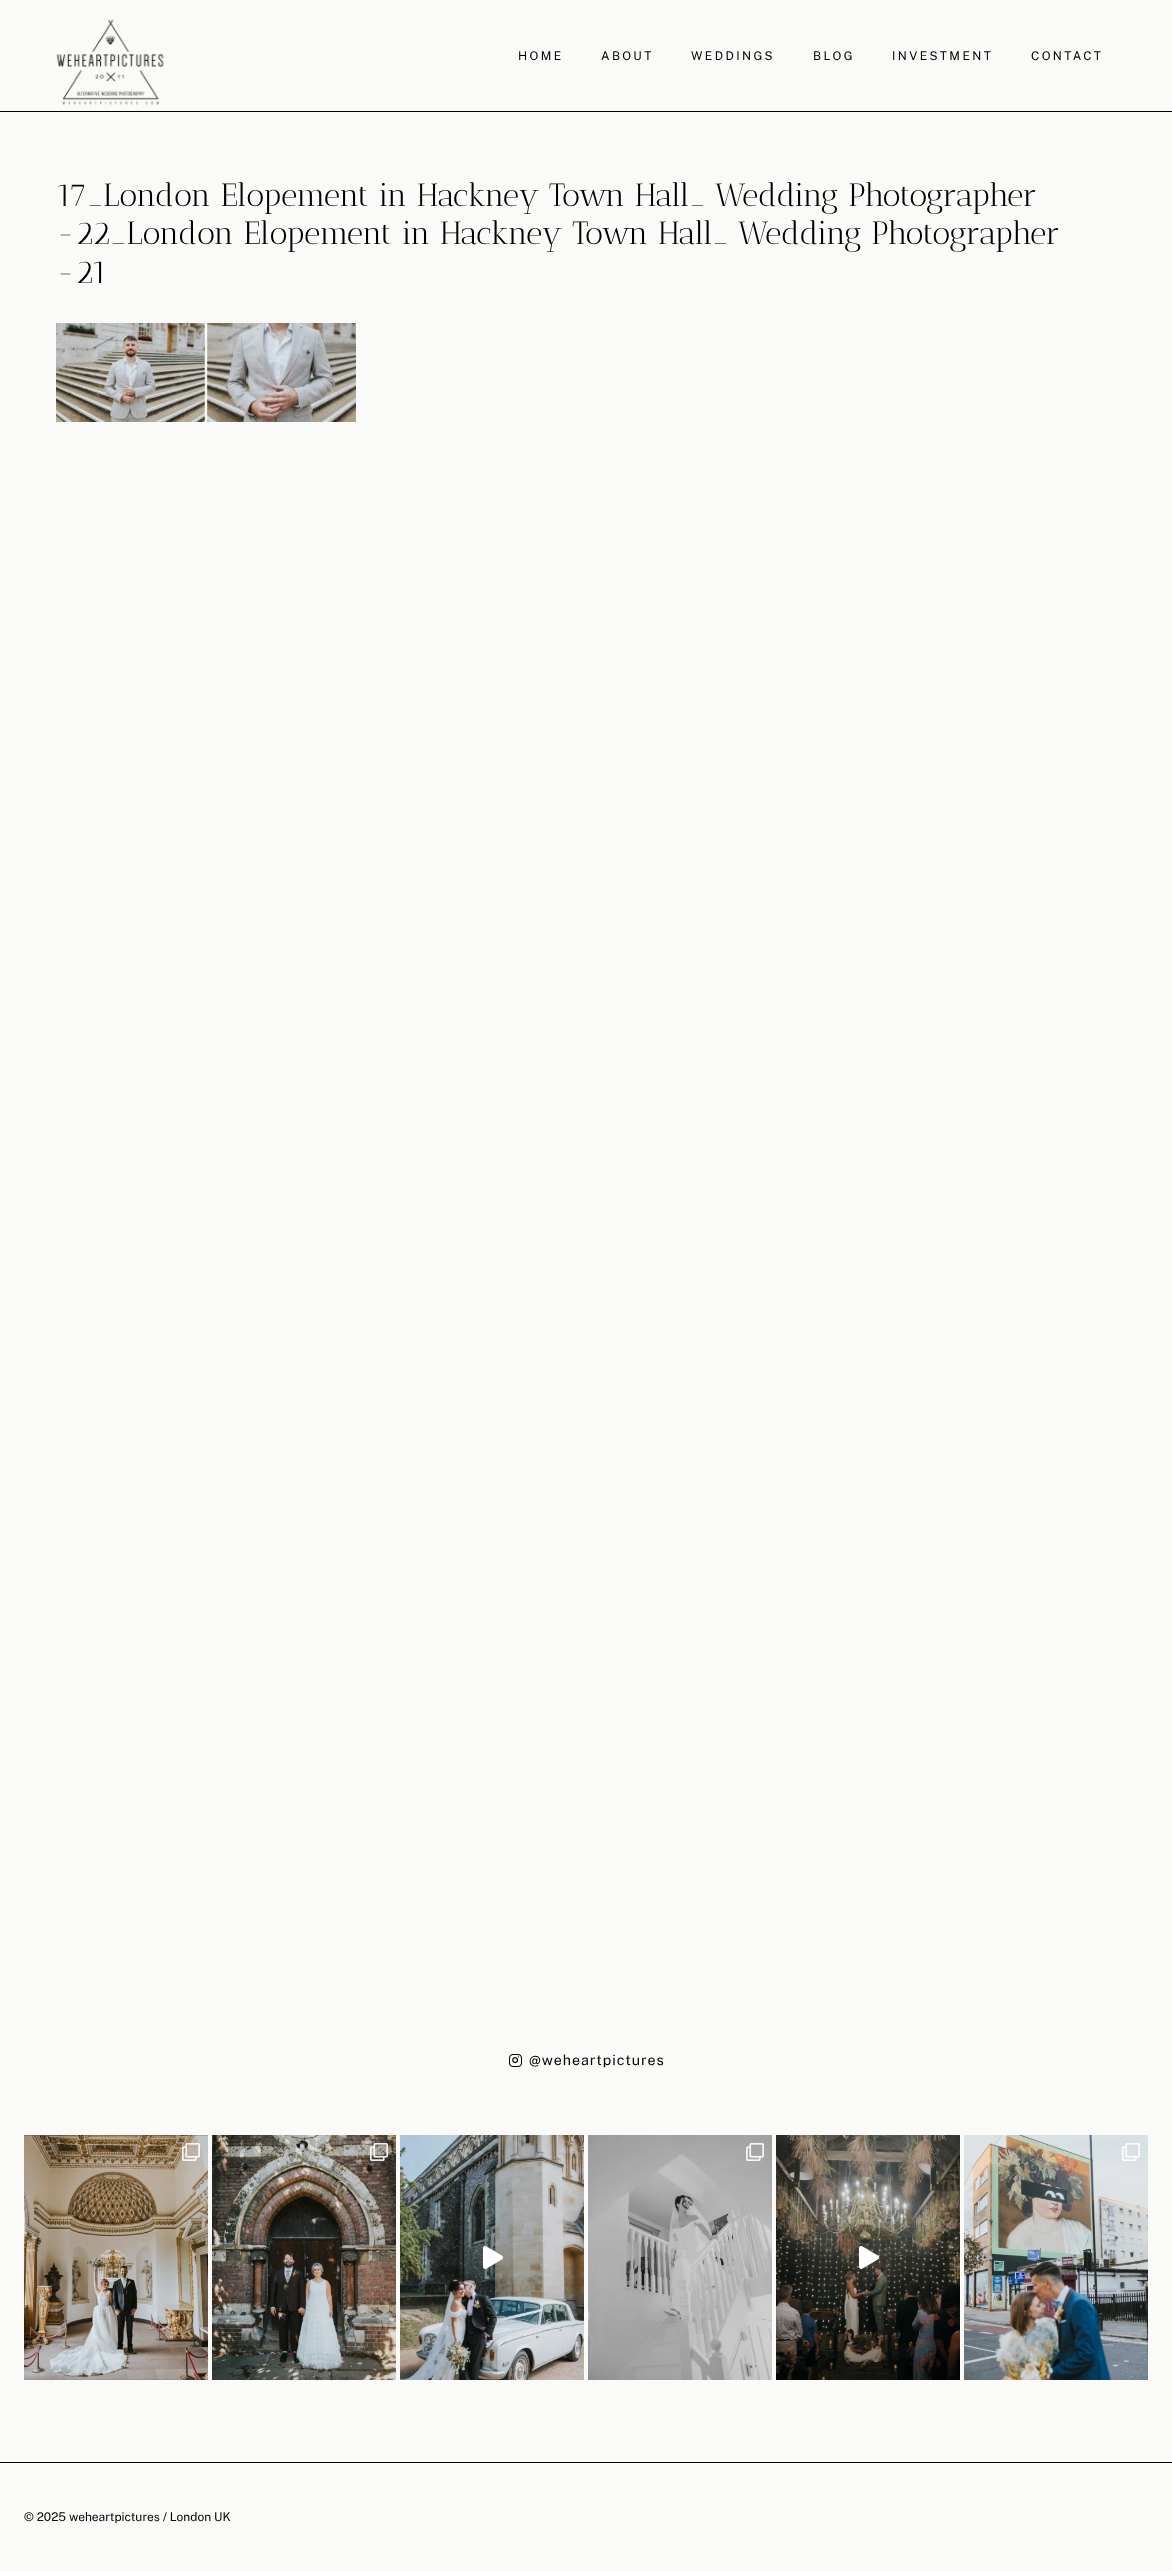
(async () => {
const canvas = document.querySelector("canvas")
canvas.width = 1172
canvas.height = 2571
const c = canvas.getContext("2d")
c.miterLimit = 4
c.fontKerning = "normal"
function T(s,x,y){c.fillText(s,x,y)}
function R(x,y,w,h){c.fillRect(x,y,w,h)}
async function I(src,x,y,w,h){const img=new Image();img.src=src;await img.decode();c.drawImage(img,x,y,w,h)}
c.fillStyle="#fafaf8"
R(0,0,1172,2571)
c.fillStyle="#000"
R(0,111,1172,1)
await I("1.png",56,19,108,86)
c.letterSpacing="2.4px"
c.font="12px Public Sans"
T("HOME",518,60)
T("ABOUT",601,60)
T("WEDDINGS",691,60)
T("BLOG",813,60)
T("INVESTMENT",892,60)
T("CONTACT",1031,60)
c.letterSpacing="0px"
c.font="32px Antic Didone"
T("17_London Elopement in Hackney Town Hall_ Wedding Photographer",56,206)
T("-22_London Elopement in Hackney Town Hall_ Wedding Photographer",56,244)
T("-21",56,283)
await I("2.png",56,323,300,99)
await I("3.png",509,2054,13,13)
c.letterSpacing="1px"
c.font="14.25px Public Sans"
T("@weheartpictures",529,2065)
R(0,2462,1172,1)
await I("4.png",24,2135,184,245)
await I("5.png",182,2143,18,18)
await I("6.png",212,2135,184,245)
await I("7.png",370,2143,18,18)
await I("8.png",400,2135,184,245)
await I("9.png",483,2246,20,23)
await I("10.png",588,2135,184,245)
await I("11.png",746,2143,18,18)
await I("12.png",776,2135,184,245)
await I("13.png",859,2246,20,23)
await I("14.png",964,2135,184,245)
await I("15.png",1122,2143,18,18)
c.letterSpacing="0px"
c.font="12px Public Sans"
T("© 2025 weheartpictures / London UK",24,2521)
})()
